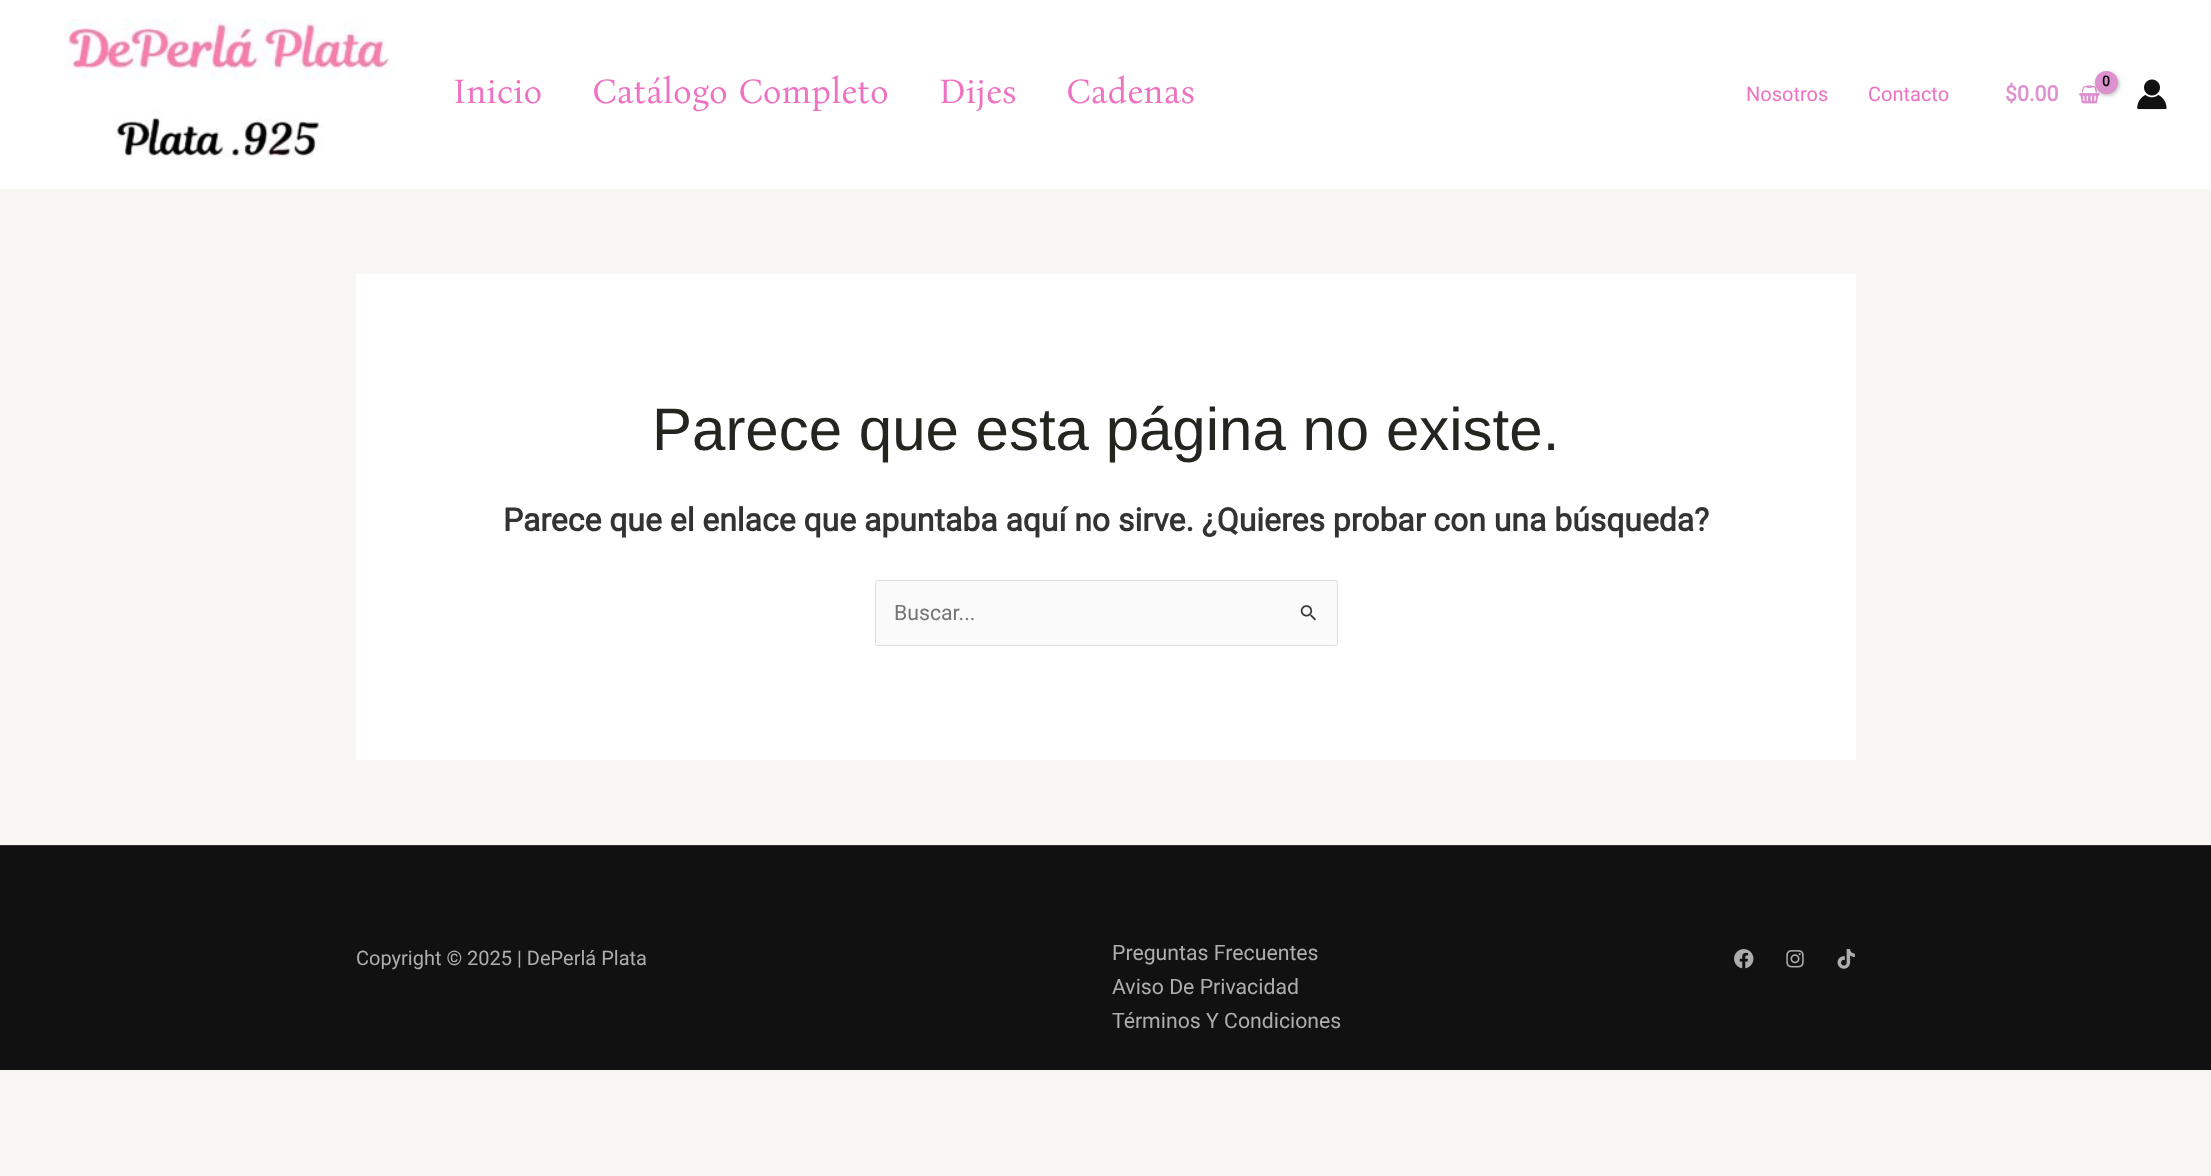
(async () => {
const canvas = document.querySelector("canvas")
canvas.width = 2211
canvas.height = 1176
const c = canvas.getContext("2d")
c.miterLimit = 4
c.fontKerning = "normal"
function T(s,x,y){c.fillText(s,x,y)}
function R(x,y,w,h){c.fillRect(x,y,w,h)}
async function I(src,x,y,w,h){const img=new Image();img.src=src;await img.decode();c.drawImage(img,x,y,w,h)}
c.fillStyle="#f8f6f3"
R(0,0,2211,1176)
c.fillStyle="#fff"
R(0,0,2211,189)
await I("1.png",63,18,331,141)
c.font="35px Bona Nova"
c.fillStyle="#ee72c1"
T("Inicio",453,103)
T("Catálogo Completo",592,103)
T("Dijes",939,103)
T("Cadenas",1066,103)
c.font="20px Roboto"
T("Nosotros",1746,101)
T("Contacto",1868,101)
await I("2.png",2079,85,21,19)
c.fillStyle="#0000004d"
c.filter="blur(2px)"
c.beginPath()
c.roundRect(2096,73,23,22,11)
c.fill()
c.filter="none"
c.fillStyle="#dd91ce"
c.beginPath()
c.arc(2106.5,82.5,11.5,0,7)
c.fill()
c.letterSpacing="-1px"
c.font="bold 14px Roboto"
c.fillStyle="#000"
T("0",2102,86)
c.letterSpacing="0px"
c.font="bold 21.25px Roboto"
c.fillStyle="#dd91ce"
T("$0.00",2005,101)
await I("3.png",2137,79,30,31)
c.fillStyle="#fff"
R(356,274,1500,486)
c.font="60px Liberation Sans"
c.fillStyle="#23261f"
T("Parece que esta página no existe.",652,450)
c.font="bold 31.9px Roboto"
c.fillStyle="#333"
T("Parece que el enlace que apuntaba aquí no sirve. ¿Quieres probar con una búsqueda?",503,531)
c.fillStyle="#fafafa"
c.beginPath()
c.roundRect(875.5,580.5,462,65,2)
c.fill()
c.strokeStyle="#ddd"
c.stroke()
c.font="21.25px Roboto"
c.fillStyle="#757575"
T("Buscar...",894,620)
await I("4.png",1300,605,16,16)
c.fillStyle="#111"
R(0,846,2211,224)
c.fillStyle="#2e2e2e"
R(0,845,2211,1)
c.font="20px Roboto"
c.fillStyle="#aeaeae"
T("Copyright © 2025 | DePerlá Plata",356,965)
c.font="21.25px Roboto"
T("Preguntas Frecuentes",1112,960)
T("Aviso De Privacidad",1112,994)
T("Términos Y Condiciones",1112,1028)
await I("5.png",1734,949,20,20)
await I("6.png",1786,950,18,18)
await I("7.png",1837,949,18,20)
})()
